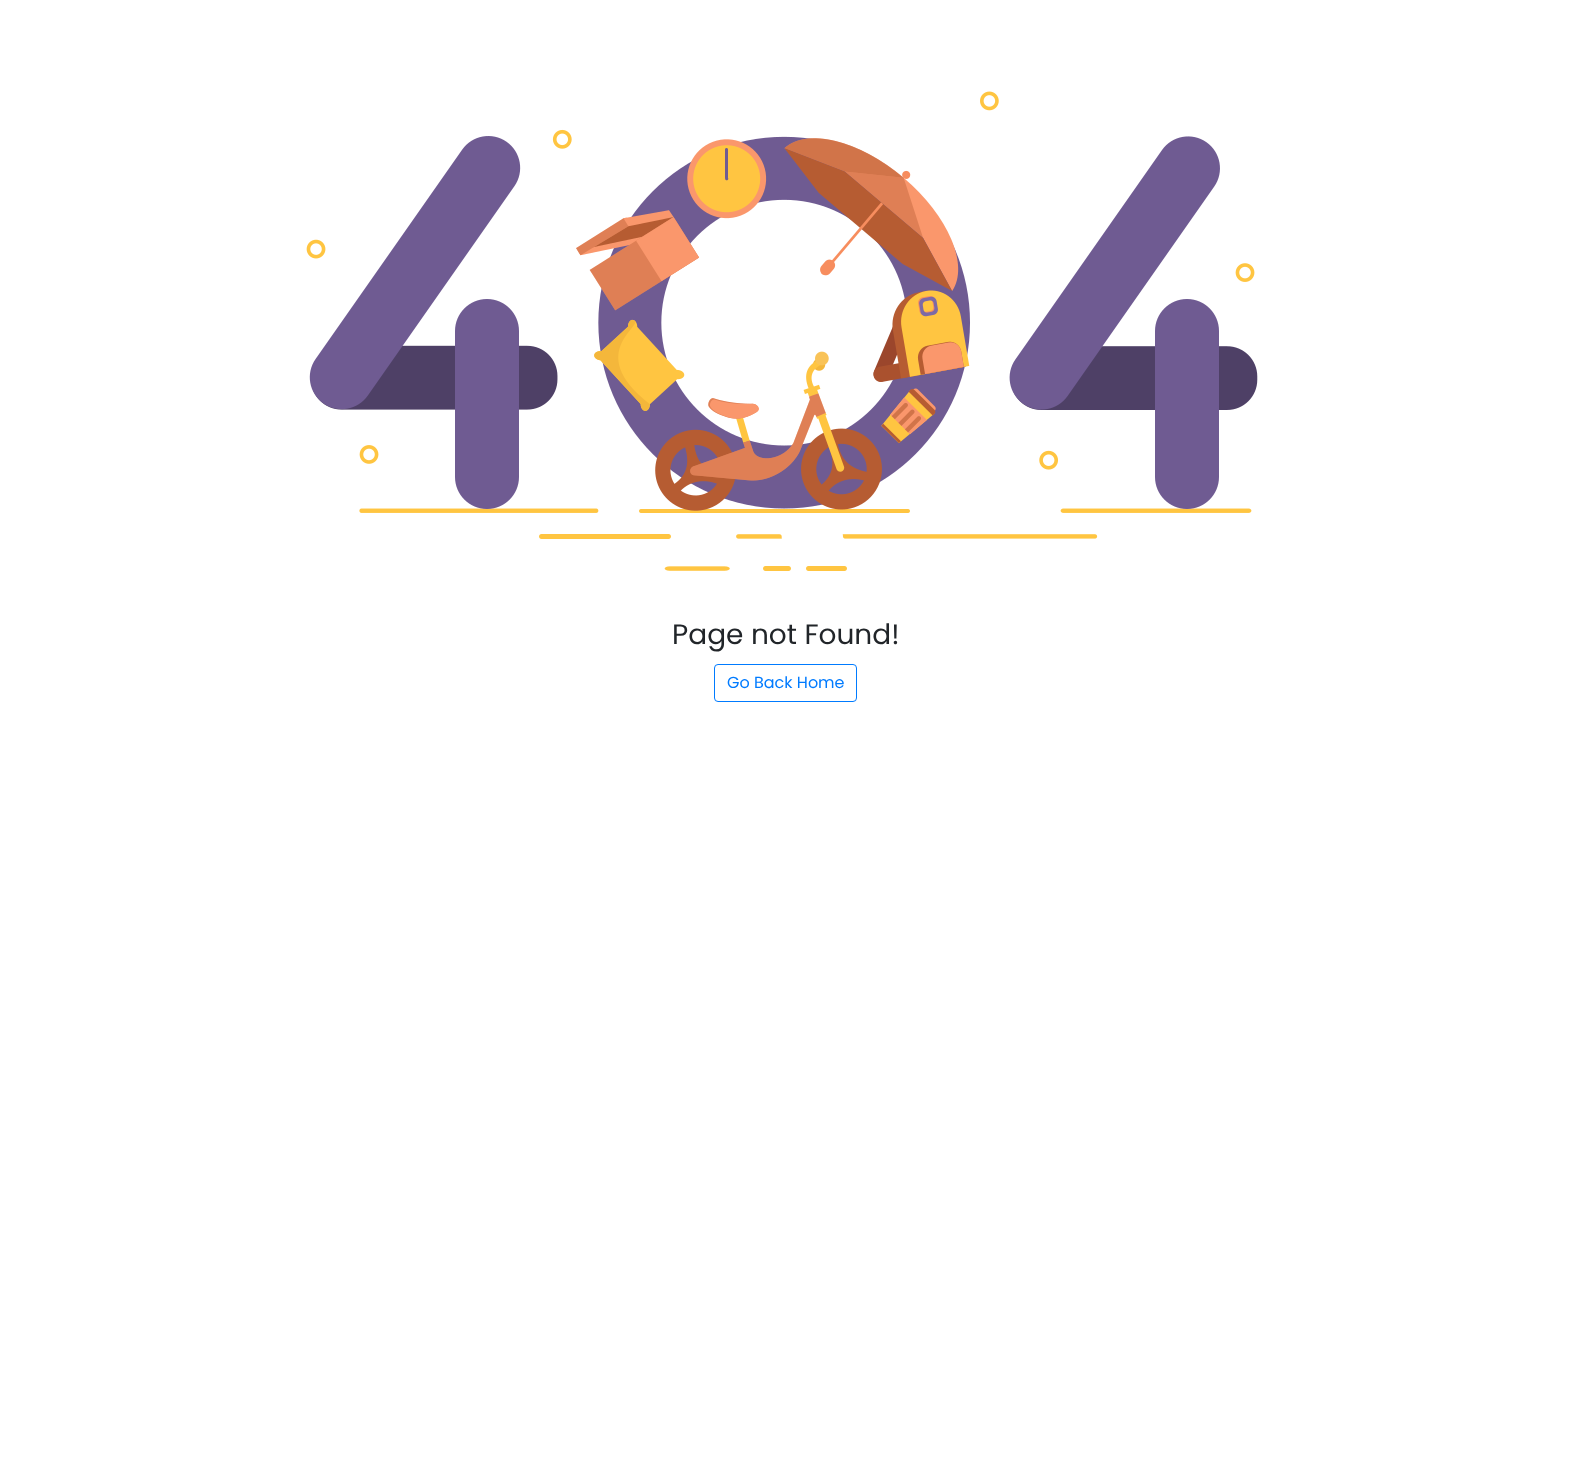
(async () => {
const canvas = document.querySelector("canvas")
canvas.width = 1571
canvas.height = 1467
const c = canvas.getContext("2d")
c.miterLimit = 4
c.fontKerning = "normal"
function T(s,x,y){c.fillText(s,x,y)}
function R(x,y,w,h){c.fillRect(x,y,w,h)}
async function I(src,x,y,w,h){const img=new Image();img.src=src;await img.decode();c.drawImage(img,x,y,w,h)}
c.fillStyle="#fff"
R(0,0,1571,1467)
await I("1.png",306,91,952,480)
c.font="28px Poppins"
c.fillStyle="#212529"
T("Page not Found!",672,644)
c.beginPath()
c.roundRect(714.5,664.5,142,37,3.5)
c.strokeStyle="#007bff"
c.stroke()
c.font="16px Poppins"
c.fillStyle="#007bff"
T("Go Back Home",727,688)
})()
